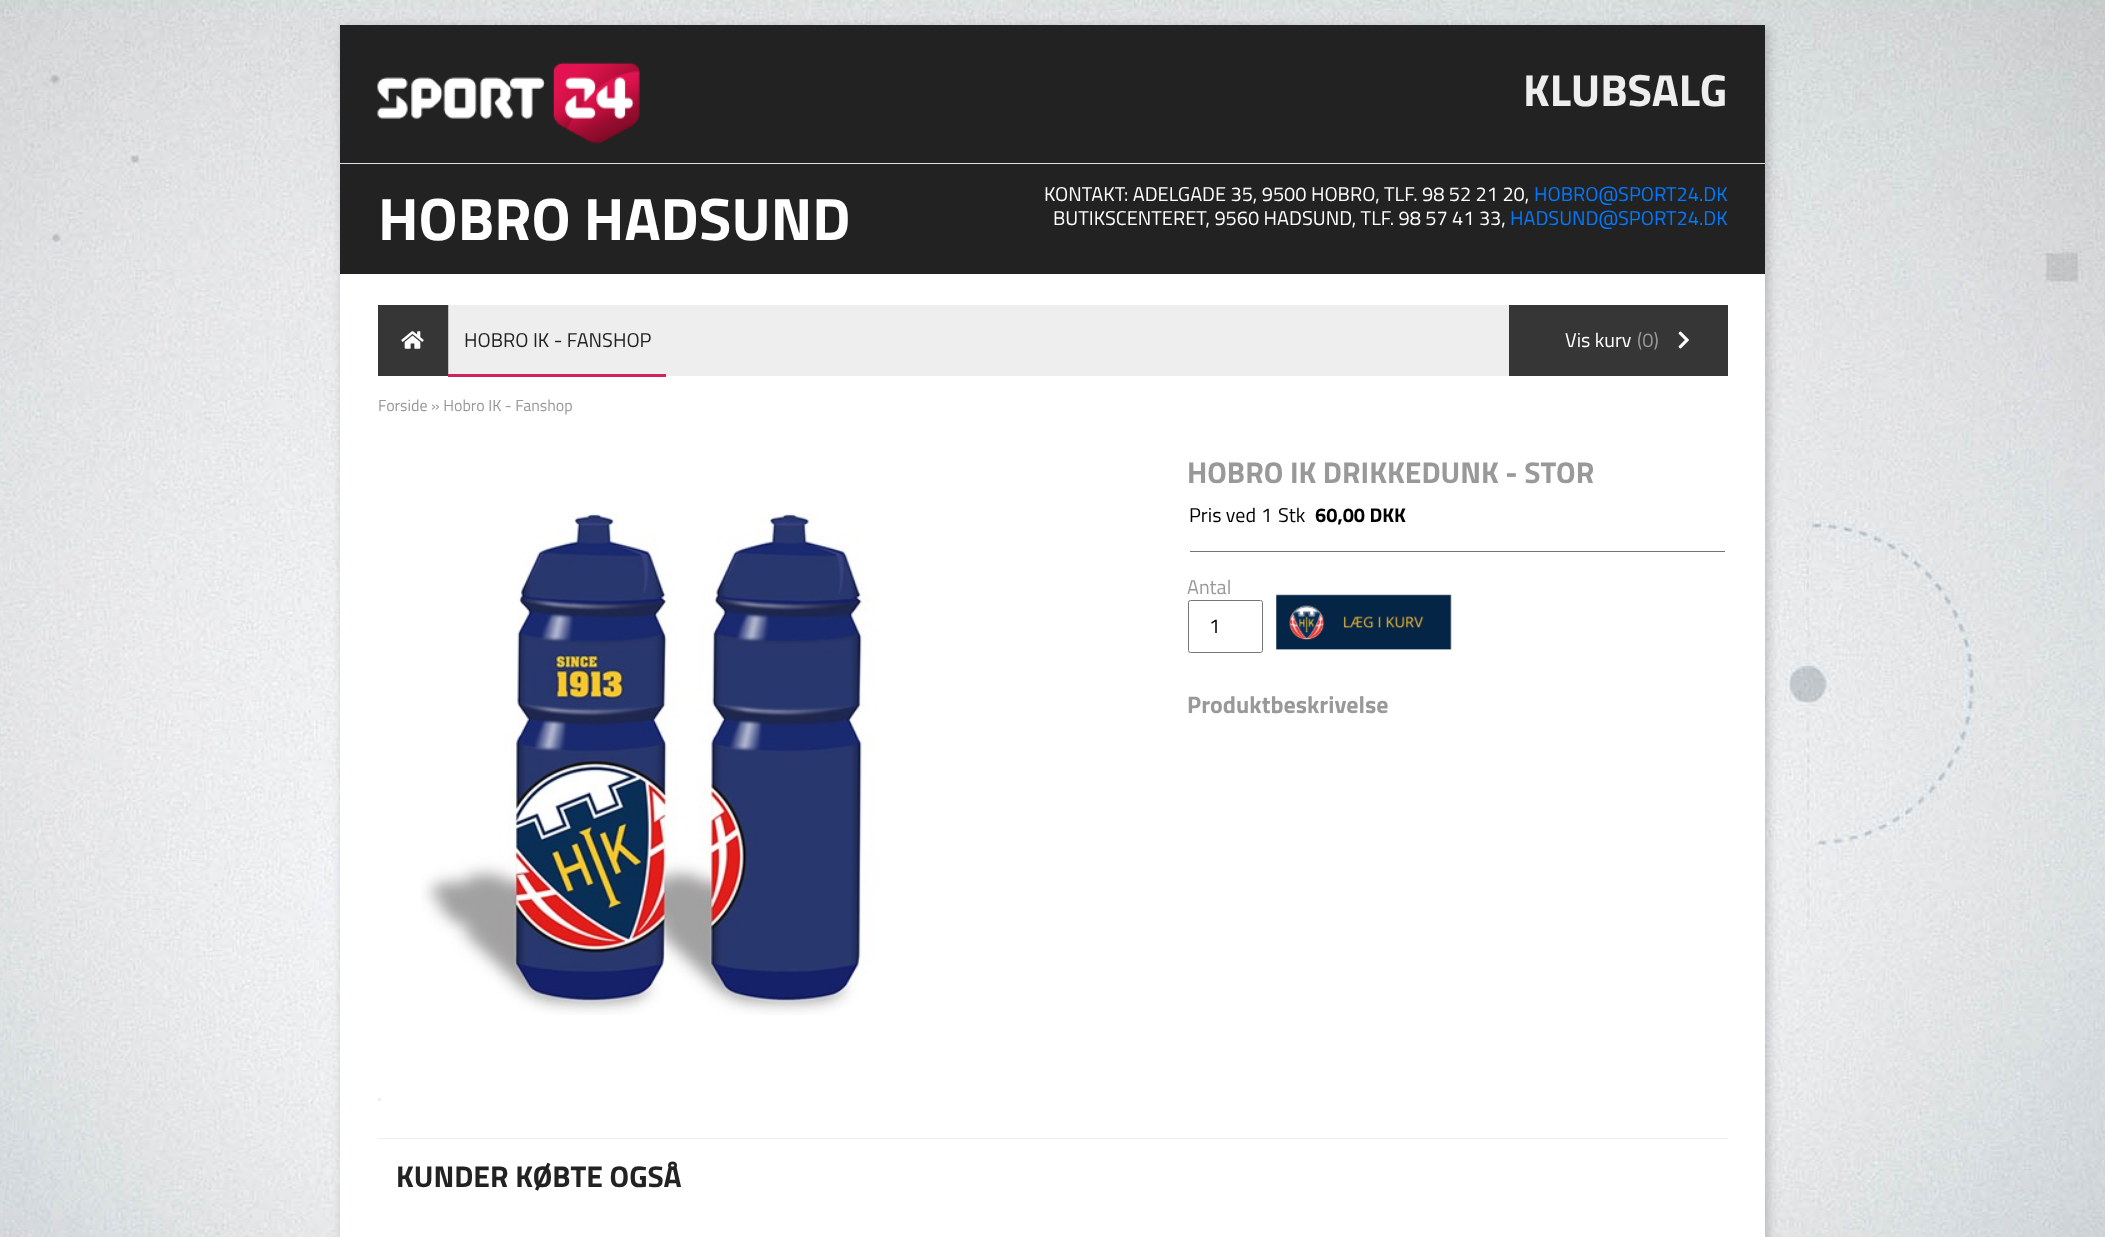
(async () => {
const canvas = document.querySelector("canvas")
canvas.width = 2105
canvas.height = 1237
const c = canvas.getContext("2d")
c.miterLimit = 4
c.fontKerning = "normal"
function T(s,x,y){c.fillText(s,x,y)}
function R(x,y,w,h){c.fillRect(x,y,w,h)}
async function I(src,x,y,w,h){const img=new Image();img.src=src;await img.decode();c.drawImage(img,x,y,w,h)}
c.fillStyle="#fff"
R(0,0,2105,1237)
await I("1.png",0,0,2105,1237)
c.fillStyle="#00000033"
c.filter="blur(6px)"
c.beginPath()
c.rect(343,28,1425,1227)
c.fill()
c.filter="none"
c.fillStyle="#fff"
R(340,274,1425,963)
c.fillStyle="#222"
R(340,25,1425,138)
await I("2.png",377,62,263,82)
c.font="bold 45px Titillium Web"
c.fillStyle="#eee"
T("KLUBSALG",1523,106)
c.fillStyle="#222"
R(340,164,1425,110)
c.fillStyle="#dee2e6"
R(340,163,1425,1)
c.font="bold 60px Titillium Web"
c.fillStyle="#fff"
T("HOBRO HADSUND",378,240)
c.font="20px Titillium Web"
T("KONTAKT: ADELGADE 35, 9500 HOBRO, TLF. 98 52 21 20,",1044,201)
c.fillStyle="#007bff"
T("HOBRO@SPORT24.DK",1534,201)
c.fillStyle="#fff"
T("BUTIKSCENTERET, 9560 HADSUND, TLF. 98 57 41 33,",1053,225)
c.fillStyle="#007bff"
T("HADSUND@SPORT24.DK",1510,225)
c.fillStyle="#eee"
R(449,305,1060,71)
c.fillStyle="#363636"
R(378,305,70,71)
await I("3.png",401,331,23,18)
c.fillStyle="#d0225d"
R(448,374,218,3)
c.fillStyle="#c3c3c3"
R(448,305,1,69)
c.fillStyle="#222"
T("HOBRO IK - FANSHOP",464,347)
c.fillStyle="#363636"
R(1509,305,219,71)
c.fillStyle="#fff"
T("Vis kurv",1565,347)
c.fillStyle="#999"
T("(0)",1637,347)
await I("4.png",1678,331,11,18)
c.font="16px Titillium Web"
T("Forside » Hobro IK - Fanshop",378,411)
await I("5.png",421,513,456,502)
c.fillStyle="#eee"
R(378,1098,3,3)
c.font="bold 30px Titillium Web"
c.fillStyle="#999"
T("HOBRO IK DRIKKEDUNK - STOR",1187,483)
c.font="20px Titillium Web"
c.fillStyle="#000"
T("Pris ved",1189,522)
T("1",1261,522)
T("Stk",1278,522)
c.font="bold 20px Titillium Web"
T("60,00 DKK",1315,522)
c.fillStyle="#737373"
R(1190,551,535,1)
c.font="20px Titillium Web"
c.fillStyle="#999"
T("Antal",1187,594)
c.beginPath()
c.roundRect(1188.5,600.5,74,52,2)
c.strokeStyle="#767676"
c.stroke()
c.fillStyle="#000"
T("1",1209,633)
await I("6.png",1276,594,176,56)
c.font="bold 24px Titillium Web"
c.fillStyle="#999"
T("Produktbeskrivelse",1187,713)
c.fillStyle="#eee"
R(378,1138,1350,1)
c.font="bold 30px Titillium Web"
c.fillStyle="#222"
T("KUNDER KØBTE OGSÅ",396,1187)
})()
